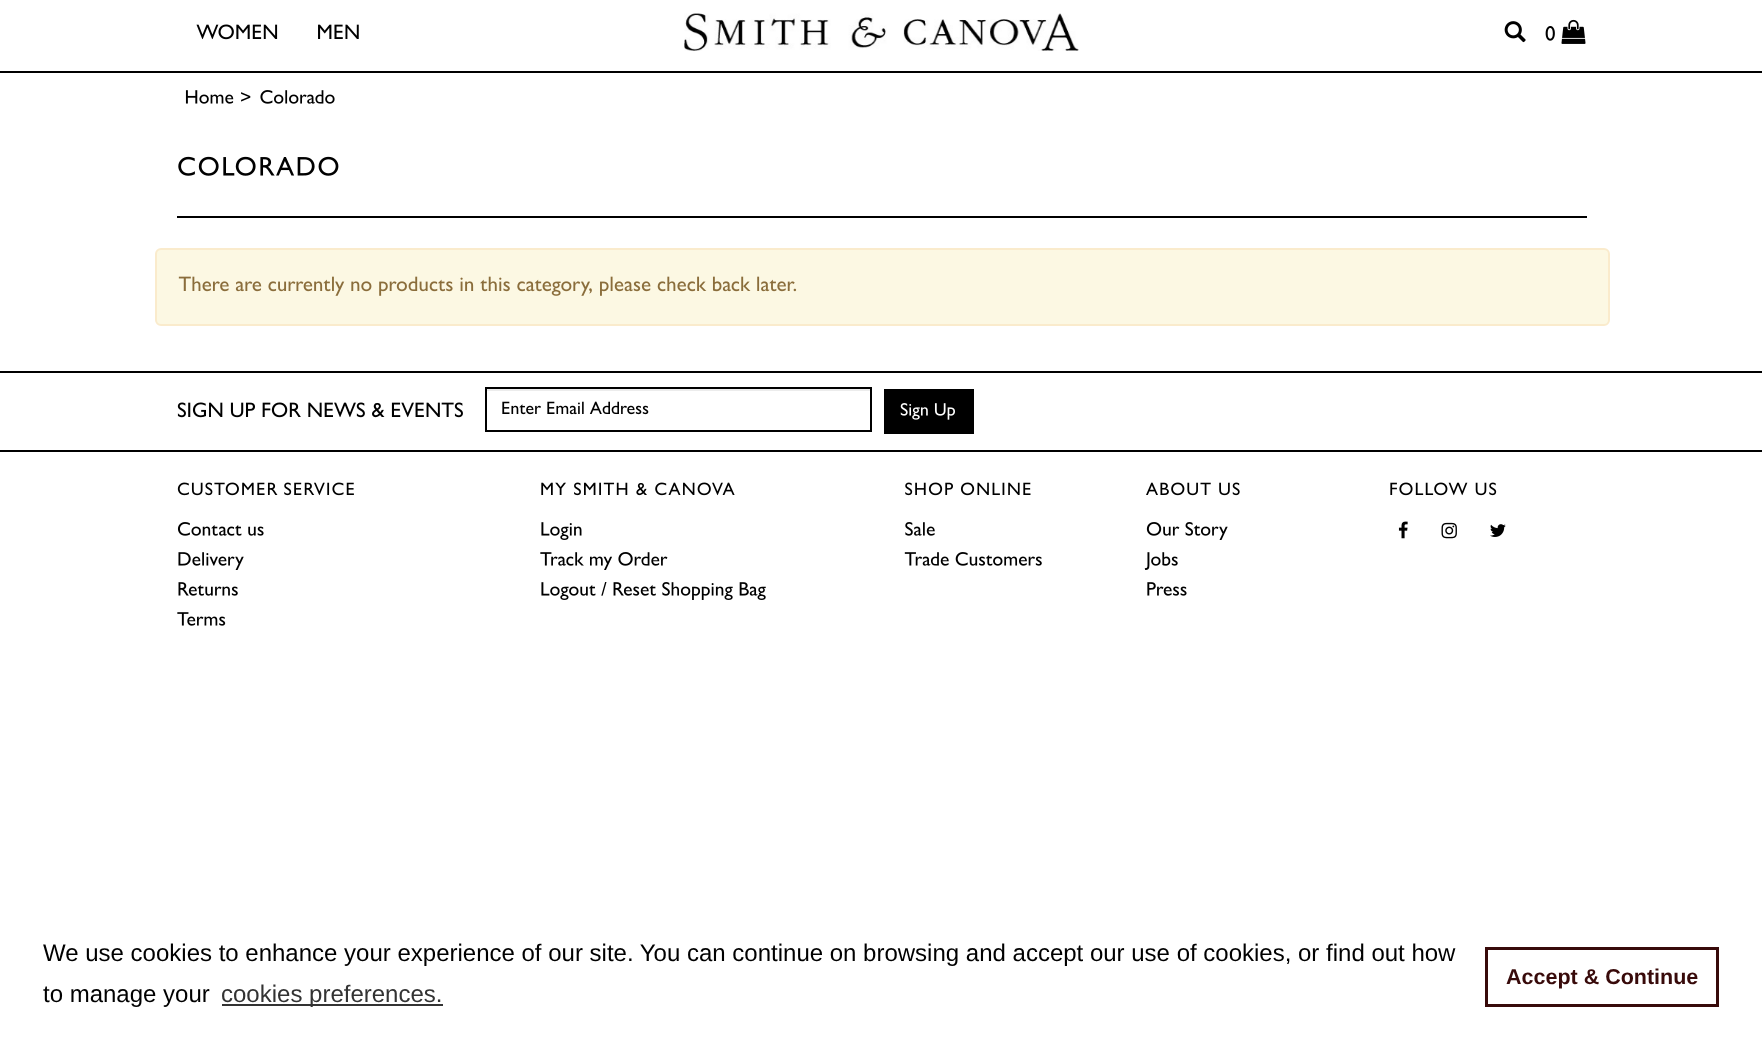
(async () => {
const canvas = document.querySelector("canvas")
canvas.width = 1762
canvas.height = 1041
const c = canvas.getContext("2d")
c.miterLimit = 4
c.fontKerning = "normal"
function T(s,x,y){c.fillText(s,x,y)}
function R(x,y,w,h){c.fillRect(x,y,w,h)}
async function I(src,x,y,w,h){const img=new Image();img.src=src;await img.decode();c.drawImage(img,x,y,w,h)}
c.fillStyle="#fff"
R(0,0,1762,1041)
c.fillStyle="#000"
R(0,71,1762,2)
await I("1.png",196,24,82,16)
await I("2.png",318,24,41,15)
await I("3.png",684,13,395,38)
await I("4.png",1504,21,22,22)
await I("5.png",1545,26,10,15)
await I("6.png",1561,19,25,25)
await I("7.png",185,90,49,14)
await I("8.png",241,92,10,10)
await I("9.png",260,90,75,14)
await I("10.png",178,156,161,20)
R(177,216,1410,2)
c.fillStyle="#fcf8e3"
c.beginPath()
c.roundRect(156,249,1453,76,5)
c.fill()
c.strokeStyle="#faebcc"
c.lineWidth=2
c.stroke()
await I("11.png",178,276,619,20)
c.fillStyle="#000"
R(0,371,1762,2)
R(0,450,1762,2)
await I("12.png",177,402,286,16)
c.fillStyle="#ececec"
R(486,389,384,2)
c.strokeStyle="#000"
c.strokeRect(486,388,385,43)
await I("13.png",502,401,147,14)
c.fillStyle="#000"
R(884,389,90,45)
await I("14.png",900,403,55,17)
await I("15.png",177,482,101,14)
await I("16.png",284,482,70,14)
await I("17.png",177,522,87,14)
await I("18.png",178,552,66,18)
await I("19.png",178,582,60,14)
await I("20.png",177,612,49,14)
await I("21.png",541,482,194,14)
await I("22.png",541,522,41,18)
await I("23.png",540,552,128,18)
await I("24.png",541,582,225,18)
await I("25.png",905,482,48,14)
await I("26.png",960,482,71,14)
await I("27.png",905,522,30,14)
await I("28.png",904,552,138,14)
await I("29.png",1146,482,65,14)
await I("30.png",1219,482,21,14)
await I("31.png",1146,522,82,18)
await I("32.png",1144,552,34,18)
await I("33.png",1147,582,40,14)
await I("34.png",1390,482,107,14)
await I("35.png",1398,521,10,18)
await I("36.png",1441,522,16,17)
await I("37.png",1490,524,16,13)
c.font="24px Liberation Sans"
T("We use cookies to enhance your experience of our site. You can continue on browsing and accept our use of cookies, or find out how",43,961)
T("to manage your",43,1002)
c.fillStyle="#333"
R(222,1004,221,2)
T("cookies preferences.",221,1002)
c.strokeStyle="#380a0a"
c.lineWidth=3
c.strokeRect(1486.5,948.5,231,57)
c.font="bold 21.5px Liberation Sans"
c.fillStyle="#380a0a"
T("Accept & Continue",1506,984)
})()
